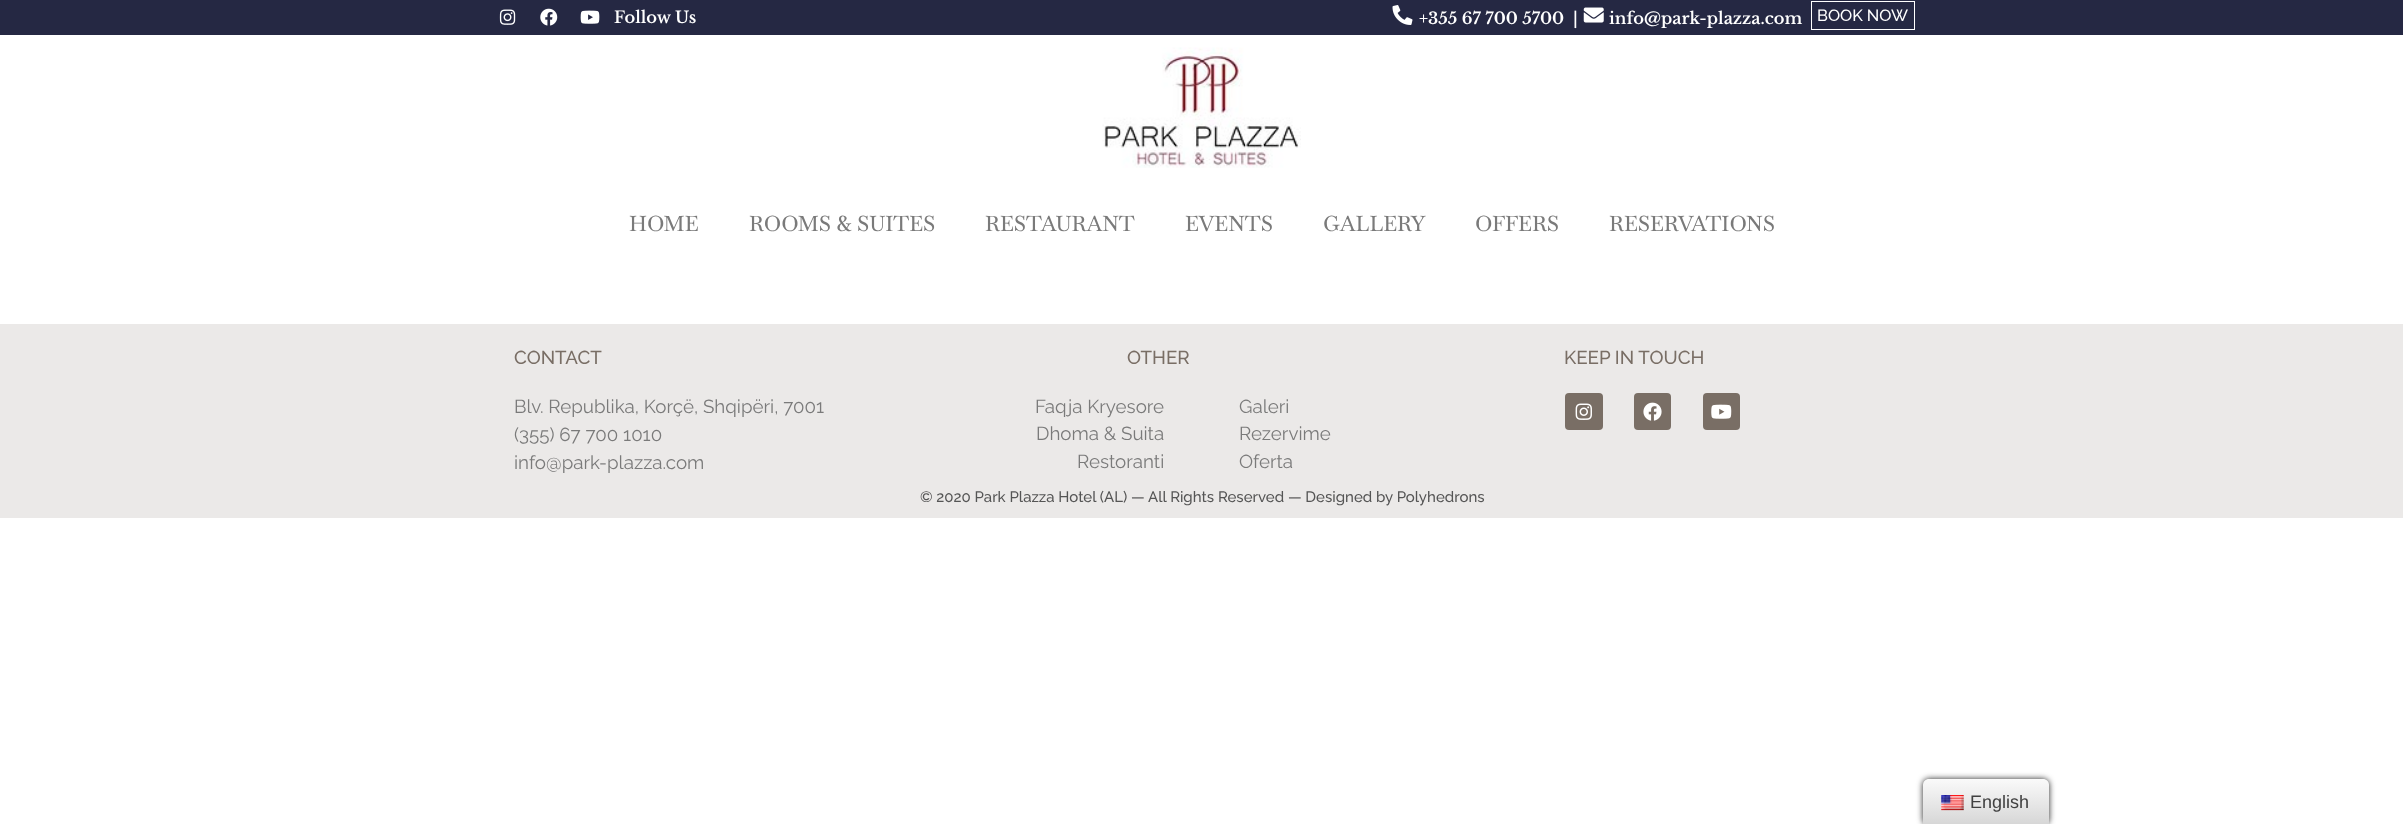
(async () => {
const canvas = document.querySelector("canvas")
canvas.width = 2403
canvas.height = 824
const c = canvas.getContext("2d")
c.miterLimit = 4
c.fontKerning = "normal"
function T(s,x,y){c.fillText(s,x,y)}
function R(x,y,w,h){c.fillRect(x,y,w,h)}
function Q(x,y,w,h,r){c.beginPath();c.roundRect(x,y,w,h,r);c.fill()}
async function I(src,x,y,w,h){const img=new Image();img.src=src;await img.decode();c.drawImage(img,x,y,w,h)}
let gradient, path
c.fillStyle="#fff"
R(0,0,2403,824)
c.fillStyle="#252843"
R(0,0,2403,35)
await I("1.png",499,9,17,16)
await I("2.png",540,8,18,18)
await I("3.png",580,10,20,14)
c.font="600 16.25px Libre Baskerville"
c.fillStyle="#fff"
T("Follow Us",614,23)
await I("4.png",1392,5,21,20)
T("+355 67 700 5700  |",1419,24)
await I("5.png",1583,7,21,16)
T("info@park-plazza.com",1609,24)
c.strokeStyle="#fff"
c.strokeRect(1811.5,1.5,103,28)
c.font="500 16.25px Raleway"
T("BOOK NOW",1817,21)
await I("6.png",1102,47,199,121)
c.font="500 21.25px Baskervville"
c.fillStyle="#7a7a7a"
T("HOME",629,231)
T("ROOMS & SUITES",749,231)
T("RESTAURANT",985,231)
T("EVENTS",1185,231)
T("GALLERY",1323,231)
T("OFFERS",1475,231)
T("RESERVATIONS",1609,231)
c.fillStyle="#ebe9e8"
R(0,324,2403,194)
c.font="500 18.75px Raleway"
c.fillStyle="#796e65"
T("CONTACT",514,364)
c.font="18.75px Raleway"
c.fillStyle="#7a7a7a"
T("Blv. Republika, Korçë, Shqipëri, 7001",514,413)
T("(355) 67 700 1010",514,441)
T("info@park-plazza.com",514,469)
c.font="500 18.75px Raleway"
c.fillStyle="#796e65"
T("OTHER",1127,364)
c.font="18.75px Raleway"
c.fillStyle="#7a7a7a"
T("Faqja Kryesore",1035,413)
T("Dhoma & Suita",1036,440)
T("Restoranti",1077,468)
c.font="500 18.75px Raleway"
c.fillStyle="#796e65"
T("KEEP IN TOUCH",1564,364)
Q(1565,393,38,37,4)
await I("7.png",1575,403,17,17)
Q(1634,393,37,37,4)
await I("8.png",1643,402,19,19)
Q(1703,393,37,37,4)
await I("9.png",1711,404,21,15)
c.font="18.75px Raleway"
c.fillStyle="#7a7a7a"
T("Galeri",1239,413)
T("Rezervime",1239,440)
T("Oferta",1239,468)
c.font="500 15px Raleway"
c.fillStyle="#555"
T("© 2020 Park Plazza Hotel (AL) — All Rights Reserved — Designed by Polyhedrons",920,502)
c.fillStyle="#212121"
c.filter="blur(3px)"
c.beginPath()
c.roundRect(1923,779,126,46,6)
c.fill()
c.filter="none"
gradient = c.createLinearGradient(1986,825,1986,779)
gradient.addColorStop(0,"#d6d6d6")
gradient.addColorStop(1,"#fafafa")
c.fillStyle = gradient
path = new Path2D("M1929 779h114c3.5 0 6 2.5 6 6v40h-126v-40c0-3.5 2.5-6 6-6z")
c.fill(path)
await I("10.png",1941,795,23,16)
c.font="18px Liberation Sans"
c.fillStyle="#404040"
T("English",1970,808)
})()
